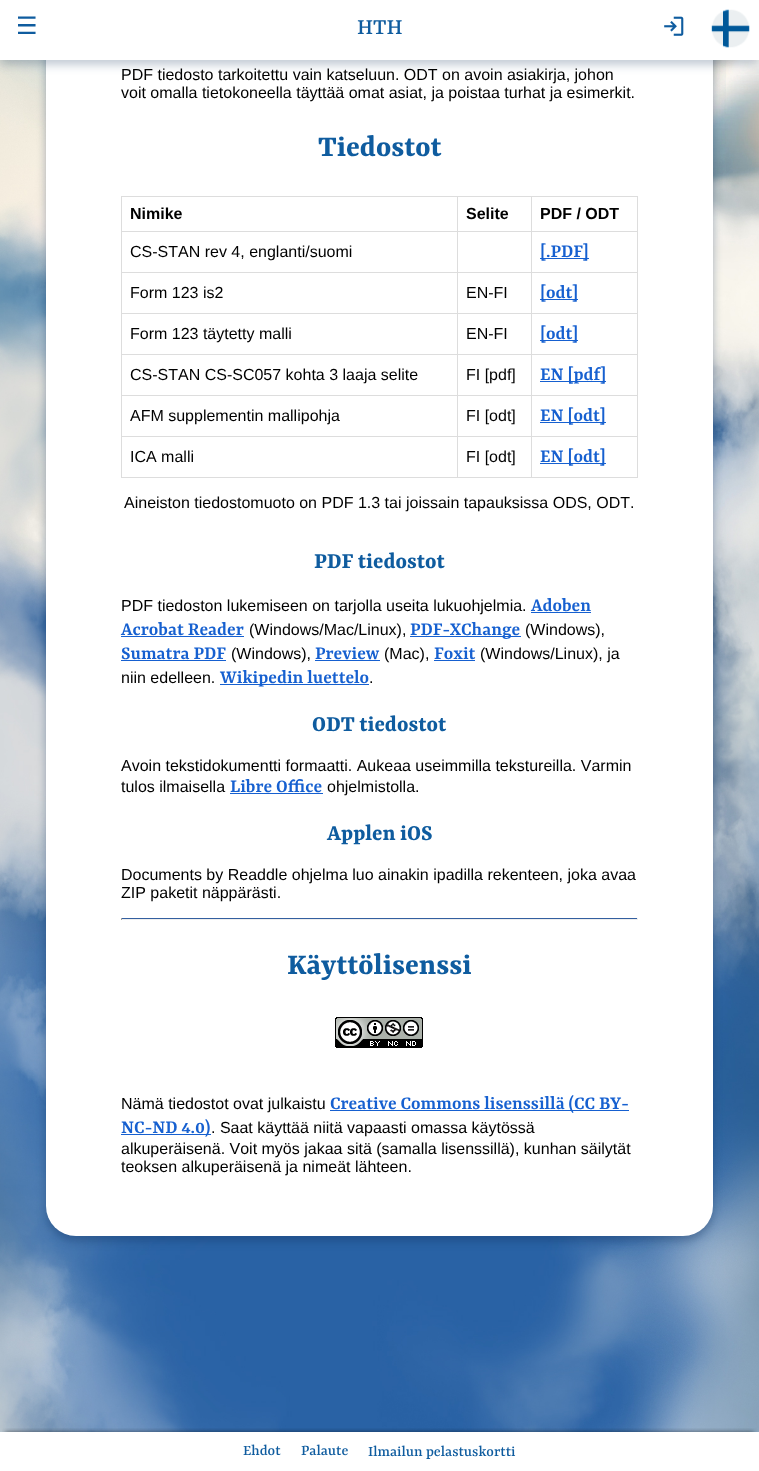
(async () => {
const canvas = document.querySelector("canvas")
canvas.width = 759
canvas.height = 1471
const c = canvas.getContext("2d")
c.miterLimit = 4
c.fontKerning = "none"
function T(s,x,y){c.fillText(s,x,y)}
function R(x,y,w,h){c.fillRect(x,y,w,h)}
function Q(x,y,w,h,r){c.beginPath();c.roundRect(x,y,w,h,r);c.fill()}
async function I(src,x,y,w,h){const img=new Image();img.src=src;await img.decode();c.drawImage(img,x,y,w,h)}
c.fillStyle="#fff"
R(0,0,759,1471)
await I("1.png",0,60,759,1372)
c.fillStyle="#0e2f5859"
c.filter="blur(5px)"
c.beginPath()
c.roundRect(46,-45,667,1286,30)
c.fill()
c.filter="none"
c.fillStyle="#fff"
Q(46,-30,667,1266,30)
c.fillStyle="#0e2f5840"
c.filter="blur(5px)"
c.beginPath()
c.rect(0,5,759,60)
c.fill()
c.filter="none"
c.fillStyle="#fff"
R(0,0,759,60)
c.font="24px DejaVu Sans"
c.fillStyle="#0f5c9f"
T("☰",16,34)
c.font="500 24px Yrsa"
T("HTH",357,34)
await I("2.png",664,16,20,20)
await I("3.png",711,9,39,39)
c.font="16px Liberation Sans"
c.fillStyle="#000"
T("PDF tiedosto tarkoitettu vain katseluun. ODT on avoin asiakirja, johon",121,80)
T("voit omalla tietokoneella täyttää omat asiat, ja poistaa turhat ja esimerkit.",121,98)
c.font="bold 32px Yrsa"
c.fillStyle="#0f5c9f"
T("Tiedostot",318,156)
c.fillStyle="#ddd"
R(531,196,107,1)
R(531,231,107,1)
R(531,272,107,1)
R(531,313,107,1)
R(531,354,107,1)
R(531,395,107,1)
R(531,436,107,1)
R(637,436,1,42)
R(531,477,107,1)
R(531,436,1,42)
R(457,436,75,1)
R(531,395,1,42)
R(457,395,75,1)
R(531,354,1,42)
R(457,354,75,1)
R(531,313,1,42)
R(457,313,75,1)
R(531,272,1,42)
R(457,272,75,1)
R(531,231,1,42)
R(457,231,75,1)
R(531,196,1,36)
R(457,196,75,1)
R(457,477,75,1)
R(457,436,1,42)
R(121,436,337,1)
R(457,395,1,42)
R(121,395,337,1)
R(457,354,1,42)
R(121,354,337,1)
R(457,313,1,42)
R(121,313,337,1)
R(457,272,1,42)
R(121,272,337,1)
R(457,231,1,42)
R(121,231,337,1)
R(457,196,1,36)
R(121,196,337,1)
R(121,477,337,1)
R(121,436,1,42)
R(121,395,1,42)
R(121,354,1,42)
R(121,313,1,42)
R(121,272,1,42)
R(121,231,1,42)
R(121,196,1,36)
c.font="bold 16px Liberation Sans"
c.fillStyle="#000"
T("Nimike",130,219)
T("Selite",466,219)
c.fillStyle="#ddd"
R(637,395,1,42)
R(637,354,1,42)
R(637,313,1,42)
R(637,272,1,42)
R(637,231,1,42)
R(637,196,1,36)
c.fillStyle="#000"
T("PDF / ODT",540,219)
c.font="16px Liberation Sans"
T("CS-STAN rev 4, englanti/suomi",130,257)
c.fillStyle="#1660d0"
R(540,258,49,1)
c.font="600 20px Yrsa"
T("[.PDF]",540,257)
c.font="16px Liberation Sans"
c.fillStyle="#000"
T("Form 123 is2",130,298)
T("EN-FI",466,298)
c.fillStyle="#1660d0"
R(540,299,38,1)
c.font="600 20px Yrsa"
T("[odt]",540,298)
c.font="16px Liberation Sans"
c.fillStyle="#000"
T("Form 123 täytetty malli",130,339)
T("EN-FI",466,339)
c.fillStyle="#1660d0"
R(540,340,38,1)
c.font="600 20px Yrsa"
T("[odt]",540,339)
c.font="16px Liberation Sans"
c.fillStyle="#000"
T("CS-STAN CS-SC057 kohta 3 laaja selite",130,380)
T("FI [pdf]",466,380)
c.fillStyle="#1660d0"
R(540,381,66,1)
c.font="600 20px Yrsa"
T("EN [pdf]",540,380)
c.font="16px Liberation Sans"
c.fillStyle="#000"
T("AFM supplementin mallipohja",130,421)
T("FI [odt]",466,421)
c.fillStyle="#1660d0"
R(540,422,66,1)
c.font="600 20px Yrsa"
T("EN [odt]",540,421)
c.font="16px Liberation Sans"
c.fillStyle="#000"
T("ICA malli",130,462)
T("FI [odt]",466,462)
c.fillStyle="#1660d0"
R(540,463,66,1)
c.font="600 20px Yrsa"
T("EN [odt]",540,462)
c.font="16px Liberation Sans"
c.fillStyle="#000"
T("Aineiston tiedostomuoto on PDF 1.3 tai joissain tapauksissa ODS, ODT.",124,508)
c.font="bold 24px Yrsa"
c.fillStyle="#0f5c9f"
T("PDF tiedostot",314,568)
c.font="16px Liberation Sans"
c.fillStyle="#000"
T("PDF tiedoston lukemiseen on tarjolla useita lukuohjelmia.",121,611)
c.font="600 20px Yrsa"
c.fillStyle="#1660d0"
T("Adoben",531,611)
R(531,612,60,1)
T("Acrobat Reader",121,635)
R(121,636,123,1)
c.font="16px Liberation Sans"
c.fillStyle="#000"
T("(Windows/Mac/Linux),",249,635)
c.fillStyle="#1660d0"
R(410,636,111,1)
c.font="600 20px Yrsa"
T("PDF-XChange",410,635)
c.font="16px Liberation Sans"
c.fillStyle="#000"
T("(Windows),",525,635)
c.font="600 20px Yrsa"
c.fillStyle="#1660d0"
T("Sumatra PDF",121,659)
R(121,660,105,1)
c.font="16px Liberation Sans"
c.fillStyle="#000"
T("(Windows),",231,659)
c.font="600 20px Yrsa"
c.fillStyle="#1660d0"
T("Preview",315,659)
R(315,660,65,1)
c.font="16px Liberation Sans"
c.fillStyle="#000"
T("(Mac),",384,659)
c.font="600 20px Yrsa"
c.fillStyle="#1660d0"
T("Foxit",434,659)
R(434,660,41,1)
c.font="16px Liberation Sans"
c.fillStyle="#000"
T("(Windows/Linux), ja",480,659)
T("niin edelleen.",121,683)
c.fillStyle="#1660d0"
R(220,684,149,1)
c.font="600 20px Yrsa"
T("Wikipedin luettelo",220,683)
c.font="16px Liberation Sans"
c.fillStyle="#000"
T(".",369,683)
c.font="bold 24px Yrsa"
c.fillStyle="#0f5c9f"
T("ODT tiedostot",312,731)
c.font="16px Liberation Sans"
c.fillStyle="#000"
T("Avoin tekstidokumentti formaatti. Aukeaa useimmilla tekstureilla. Varmin",121,771)
T("tulos ilmaisella",121,792)
c.font="600 20px Yrsa"
c.fillStyle="#1660d0"
T("Libre Office",230,792)
R(230,793,93,1)
c.font="16px Liberation Sans"
c.fillStyle="#000"
T("ohjelmistolla.",327,792)
c.font="bold 24px Yrsa"
c.fillStyle="#0f5c9f"
T("Applen iOS",327,840)
c.font="16px Liberation Sans"
c.fillStyle="#000"
T("Documents by Readdle ohjelma luo ainakin ipadilla rekenteen, joka avaa",121,880)
T("ZIP paketit näppärästi.",121,898)
c.fillStyle="#335fa0"
R(121,918,517,1)
c.fillStyle="#eee"
R(637,918,1,2)
R(121,919,517,1)
c.fillStyle="#9f9f9f"
R(121,918,1,2)
c.font="bold 32px Yrsa"
c.fillStyle="#0f5c9f"
T("Käyttölisenssi",287,974)
await I("4.png",335,1017,88,31)
c.font="16px Liberation Sans"
c.fillStyle="#000"
T("Nämä tiedostot ovat julkaistu",121,1109)
c.fillStyle="#1660d0"
R(330,1110,299,1)
c.font="600 20px Yrsa"
T("Creative Commons lisenssillä (CC BY-",330,1109)
R(121,1134,90,1)
T("NC-ND 4.0)",121,1133)
c.font="16px Liberation Sans"
c.fillStyle="#000"
T(". Saat käyttää niitä vapaasti omassa käytössä",211,1133)
T("alkuperäisenä. Voit myös jakaa sitä (samalla lisenssillä), kunhan säilytät",121,1154)
T("teoksen alkuperäisenä ja nimeät lähteen.",121,1172)
c.save()
c.beginPath()
c.rect(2,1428,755,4)
c.clip()
c.fillStyle="#00000080"
c.filter="blur(2.5px)"
c.beginPath()
c.rect(5,1432,749,29)
c.fill()
c.filter="none"
c.restore()
c.font="500 16px Yrsa"
c.fillStyle="#0f5c9f"
T("Ehdot",243,1455)
T("Palaute",301,1455)
T("Ilmailun pelastuskortti",368,1456)
})()
